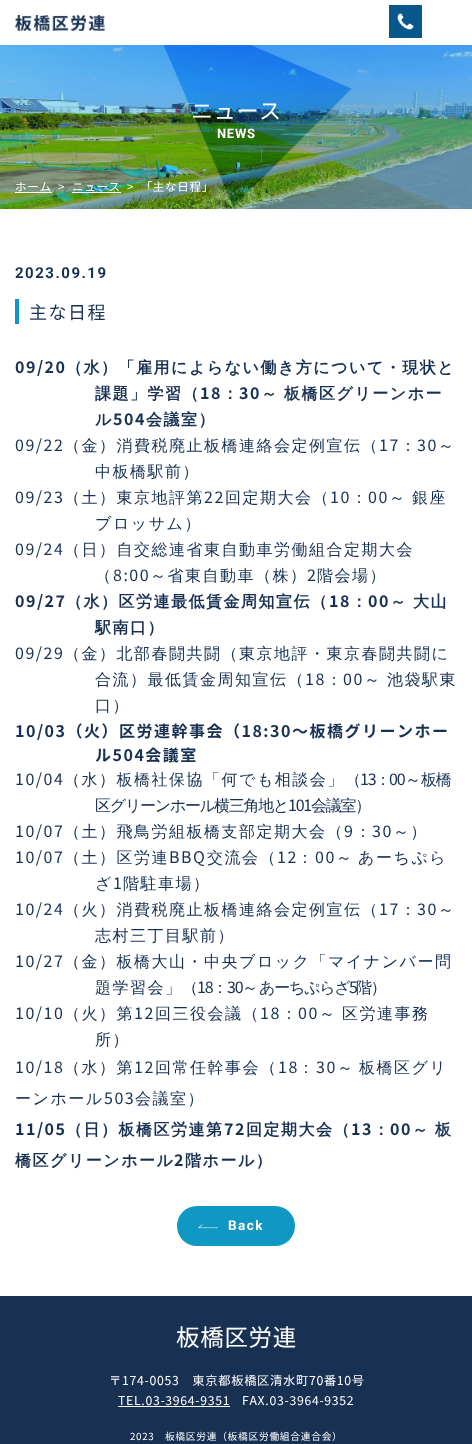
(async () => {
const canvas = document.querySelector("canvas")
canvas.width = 472
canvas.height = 1444
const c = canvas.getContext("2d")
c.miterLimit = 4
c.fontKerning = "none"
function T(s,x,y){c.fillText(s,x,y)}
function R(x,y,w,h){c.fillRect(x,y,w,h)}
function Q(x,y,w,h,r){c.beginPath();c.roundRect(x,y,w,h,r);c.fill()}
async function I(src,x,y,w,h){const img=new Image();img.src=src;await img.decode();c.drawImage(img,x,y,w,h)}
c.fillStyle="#fff"
R(0,0,472,1444)
await I("1.png",15,15,90,16)
await I("2.png",389,5,33,33)
await I("3.png",0,45,472,164)
c.letterSpacing="0.7px"
c.font="22px Noto Sans JP"
T("ニュース",191,119)
c.font="bold 13px Roboto"
T("NEWS",217,138)
c.font="11.5px Noto Sans JP"
T("ホーム",15,191)
R(15,192,37,1)
T(">",58,191)
T("ニュース",72,191)
R(72,192,49,1)
T(">  「主な日程」",127,191)
c.letterSpacing="1.5px"
c.font="bold 15px Roboto"
c.fillStyle="#183153"
T("2023.09.19",15,278)
c.fillStyle="#1098c5"
R(15,299,4,25)
c.font="18px Noto Sans JP"
c.fillStyle="#183153"
T("主な日程",29,319)
c.font="bold 16px Noto Sans JP"
T("09/20",15,373)
c.font="bold 16px WenQuanYi Zen Hei"
T("（水）「雇用によらない働き方について・現状と",66,373)
T("課題」学習（",95,399)
c.font="bold 16px Noto Sans JP"
T("18",200,399)
c.font="bold 16px WenQuanYi Zen Hei"
T("：",222,399)
c.font="bold 16px Noto Sans JP"
T("30",239,399)
c.font="bold 16px WenQuanYi Zen Hei"
T("～",261,399)
T("板橋区グリーンホー",284,399)
T("ル",95,425)
c.font="bold 16px Noto Sans JP"
T("504",113,425)
c.font="bold 16px WenQuanYi Zen Hei"
T("会議室）",146,425)
c.font="16px Noto Sans JP"
T("09/22",15,451)
c.font="500 16px WenQuanYi Zen Hei"
T("（金）消費税廃止板橋連絡会定例宣伝（",64,451)
c.font="16px Noto Sans JP"
T("17",379,451)
c.font="500 16px WenQuanYi Zen Hei"
T("：",400,451)
c.font="16px Noto Sans JP"
T("30",417,451)
c.font="500 16px WenQuanYi Zen Hei"
T("～",438,451)
T("中板橋駅前）",95,477)
c.font="16px Noto Sans JP"
T("09/23",15,503)
c.font="500 16px WenQuanYi Zen Hei"
T("（土）東京地評第",64,503)
c.font="16px Noto Sans JP"
T("22",204,503)
c.font="500 16px WenQuanYi Zen Hei"
T("回定期大会（",225,503)
c.font="16px Noto Sans JP"
T("10",330,503)
c.font="500 16px WenQuanYi Zen Hei"
T("：",351,503)
c.font="16px Noto Sans JP"
T("00",368,503)
c.font="500 16px WenQuanYi Zen Hei"
T("～",389,503)
T("銀座",412,503)
T("ブロッサム）",95,529)
c.font="16px Noto Sans JP"
T("09/24",15,555)
c.font="500 16px WenQuanYi Zen Hei"
T("（日）自交総連省東自動車労働組合定期大会",64,555)
T("（",95,581)
c.font="16px Noto Sans JP"
T("8:00",113,581)
c.font="500 16px WenQuanYi Zen Hei"
T("～省東自動車（株）",150,581)
c.font="16px Noto Sans JP"
T("2",307,581)
c.font="500 16px WenQuanYi Zen Hei"
T("階会場）",317,581)
c.font="bold 16px Noto Sans JP"
T("09/27",15,607)
c.font="bold 16px WenQuanYi Zen Hei"
T("（水）区労連最低賃金周知宣伝（",66,607)
c.font="bold 16px Noto Sans JP"
T("18",329,607)
c.font="bold 16px WenQuanYi Zen Hei"
T("：",351,607)
c.font="bold 16px Noto Sans JP"
T("00",368,607)
c.font="bold 16px WenQuanYi Zen Hei"
T("～",390,607)
T("大山",413,607)
T("駅南口）",95,633)
c.font="16px Noto Sans JP"
T("09/29",15,659)
c.font="500 16px WenQuanYi Zen Hei"
T("（金）北部春闘共闘（東京地評・東京春闘共闘に",64,659)
T("合流）最低賃金周知宣伝（",95,685)
c.font="16px Noto Sans JP"
T("18",305,685)
c.font="500 16px WenQuanYi Zen Hei"
T("：",326,685)
c.font="16px Noto Sans JP"
T("00",343,685)
c.font="500 16px WenQuanYi Zen Hei"
T("～",364,685)
T("池袋駅東",387,685)
T("口）",95,711)
c.font="bold 16px Noto Sans JP"
T("10/03（火）区労連幹事会（18:30～板橋グリーンホー",15,737)
T("ル504会議室",95,761)
c.font="16px Noto Sans JP"
T("10/04",15,785)
c.font="500 16px WenQuanYi Zen Hei"
T("（水）板橋社保協「何でも相談会」",64,785)
c.letterSpacing="-1.25px"
T("（",345,785)
c.font="16px Noto Sans JP"
T("13",360,785)
c.font="500 16px WenQuanYi Zen Hei"
T("：",375,785)
c.font="16px Noto Sans JP"
T("00",389,785)
c.font="500 16px WenQuanYi Zen Hei"
T("～",405,785)
T("板橋",421,785)
T("区グリーンホール",95,811)
c.fillStyle="#fff"
R(214,805,2,3)
c.fillStyle="#183153"
T("横三角地と",214,811)
c.font="16px Noto Sans JP"
T("101",288,811)
c.font="500 16px WenQuanYi Zen Hei"
T("会議室）",311,811)
c.letterSpacing="1.5px"
c.font="16px Noto Sans JP"
T("10/07",15,837)
c.font="500 16px WenQuanYi Zen Hei"
T("（土）飛鳥労組板橋支部定期大会（",64,837)
c.font="16px Noto Sans JP"
T("9",344,837)
c.font="500 16px WenQuanYi Zen Hei"
T("：",355,837)
c.font="16px Noto Sans JP"
T("30",372,837)
c.font="500 16px WenQuanYi Zen Hei"
T("～）",393,837)
c.font="16px Noto Sans JP"
T("10/07",15,863)
c.font="500 16px WenQuanYi Zen Hei"
T("（土）区労連",64,863)
c.font="16px Noto Sans JP"
T("BBQ",169,863)
c.font="500 16px WenQuanYi Zen Hei"
T("交流会（",207,863)
c.font="16px Noto Sans JP"
T("12",277,863)
c.font="500 16px WenQuanYi Zen Hei"
T("：",297,863)
c.font="16px Noto Sans JP"
T("00",315,863)
c.font="500 16px WenQuanYi Zen Hei"
T("～",336,863)
T("あーちぷら",358,863)
T("ざ",95,889)
c.font="16px Noto Sans JP"
T("1",113,889)
c.font="500 16px WenQuanYi Zen Hei"
T("階駐車場）",123,889)
c.font="16px Noto Sans JP"
T("10/24",15,915)
c.font="500 16px WenQuanYi Zen Hei"
T("（火）消費税廃止板橋連絡会定例宣伝（",64,915)
c.font="16px Noto Sans JP"
T("17",379,915)
c.font="500 16px WenQuanYi Zen Hei"
T("：",400,915)
c.font="16px Noto Sans JP"
T("30",417,915)
c.font="500 16px WenQuanYi Zen Hei"
T("～",438,915)
T("志村三丁目駅前）",95,941)
c.font="16px Noto Sans JP"
T("10/27",15,967)
c.font="500 16px WenQuanYi Zen Hei"
T("（金）板橋大山・中央ブロック「マイナンバー問",64,967)
T("題学習会」",95,993)
c.letterSpacing="-1.25px"
T("（",182,993)
c.font="16px Noto Sans JP"
T("18",197,993)
c.font="500 16px WenQuanYi Zen Hei"
T("：",212,993)
c.font="16px Noto Sans JP"
T("30",227,993)
c.font="500 16px WenQuanYi Zen Hei"
T("～",242,993)
T("あーちぷらざ",259,993)
c.font="16px Noto Sans JP"
T("5",349,993)
c.font="500 16px WenQuanYi Zen Hei"
T("階）",356,993)
c.letterSpacing="1.5px"
c.font="16px Noto Sans JP"
T("10/10",15,1019)
c.font="500 16px WenQuanYi Zen Hei"
T("（火）第",64,1019)
c.font="16px Noto Sans JP"
T("12",134,1019)
c.font="500 16px WenQuanYi Zen Hei"
T("回三役会議（",155,1019)
c.font="16px Noto Sans JP"
T("18",260,1019)
c.font="500 16px WenQuanYi Zen Hei"
T("：",281,1019)
c.font="16px Noto Sans JP"
T("00",298,1019)
c.font="500 16px WenQuanYi Zen Hei"
T("～",319,1019)
T("区労連事務",342,1019)
T("所）",95,1045)
c.font="16px Noto Sans JP"
T("10/18",15,1073)
c.font="500 16px WenQuanYi Zen Hei"
T("（水）第",64,1073)
c.font="16px Noto Sans JP"
T("12",134,1073)
c.font="500 16px WenQuanYi Zen Hei"
T("回常任幹事会（",155,1073)
c.font="16px Noto Sans JP"
T("18",278,1073)
c.font="500 16px WenQuanYi Zen Hei"
T("：",298,1073)
c.font="16px Noto Sans JP"
T("30",316,1073)
c.font="500 16px WenQuanYi Zen Hei"
T("～",337,1073)
T("板橋区グリ",359,1073)
T("ーンホール",15,1104)
c.font="16px Noto Sans JP"
T("503",104,1104)
c.font="500 16px WenQuanYi Zen Hei"
T("会議室）",135,1104)
c.font="bold 16px Noto Sans JP"
T("11/05",15,1135)
c.font="bold 16px WenQuanYi Zen Hei"
T("（日）板橋区労連第",66,1135)
c.font="bold 16px Noto Sans JP"
T("72",224,1135)
c.font="bold 16px WenQuanYi Zen Hei"
T("回定期大会（",246,1135)
c.font="bold 16px Noto Sans JP"
T("13",351,1135)
c.font="bold 16px WenQuanYi Zen Hei"
T("：",373,1135)
c.font="bold 16px Noto Sans JP"
T("00",390,1135)
c.font="bold 16px WenQuanYi Zen Hei"
T("～",412,1135)
T("板",435,1135)
T("橋区グリーンホール",15,1166)
c.font="bold 16px Noto Sans JP"
T("2",174,1166)
c.font="bold 16px WenQuanYi Zen Hei"
T("階ホール）",185,1166)
c.fillStyle="#1098c5"
Q(177,1206,118,40,20)
await I("4.png",198,1224,20,5)
c.font="bold 13.5px Roboto"
c.fillStyle="#fff"
T("Back",228,1230)
c.fillStyle="#183153"
R(0,1296,472,148)
c.letterSpacing="0.7px"
c.font="23.5px Noto Sans JP"
c.fillStyle="#fff"
T("板橋区労連",176,1346)
c.font="12.25px Noto Sans JP"
T("〒174-0053　東京都板橋区清水町70番10号",109,1385)
T("TEL.03-3964-9351",118,1405)
R(118,1406,112,1)
T("FAX.03-3964-9352",242,1405)
c.font="9.75px Noto Sans JP"
T("2023　板橋区労連（板橋区労働組合連合会）",130,1440)
})()
